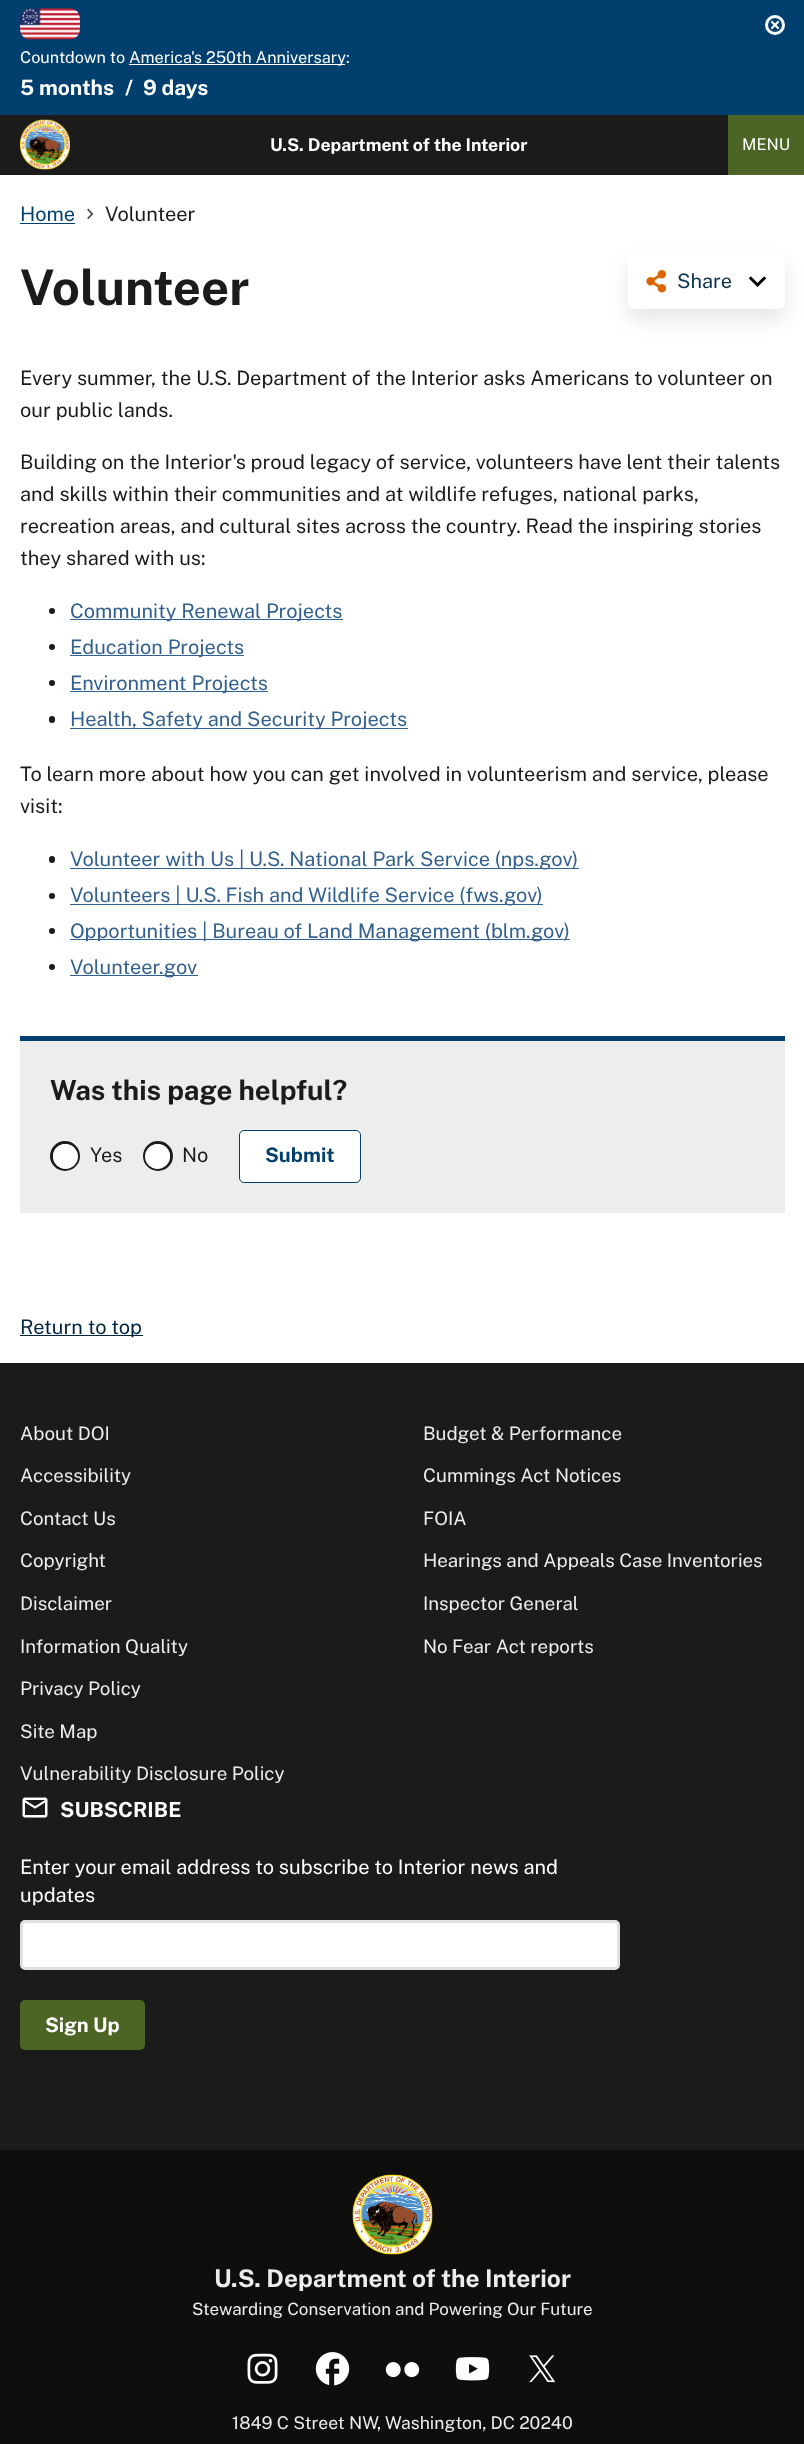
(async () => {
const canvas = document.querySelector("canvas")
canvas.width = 804
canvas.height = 2444
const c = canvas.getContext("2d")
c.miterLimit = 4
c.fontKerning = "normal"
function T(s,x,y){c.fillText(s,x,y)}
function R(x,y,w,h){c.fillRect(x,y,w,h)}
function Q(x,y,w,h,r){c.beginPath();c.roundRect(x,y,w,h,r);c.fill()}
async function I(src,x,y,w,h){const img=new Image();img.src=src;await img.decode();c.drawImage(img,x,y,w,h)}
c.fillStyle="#fff"
R(0,0,804,2444)
c.fillStyle="#01406e"
R(0,0,804,115)
await I("1.png",20,8,60,32)
await I("2.png",770,20,10,10)
c.beginPath()
c.arc(775,25,8.5,0,7)
c.strokeStyle="#fff"
c.lineWidth=3
c.stroke()
c.font="16.25px Public Sans"
c.fillStyle="#fff"
T("Countdown to",20,63)
R(129,64,216,1)
T("America's 250th Anniversary:",129,63)
c.font="bold 21px Public Sans"
T("5 months",20,95)
T("/",125,95)
T("9 days",143,95)
c.fillStyle="#1b1b1b"
R(0,115,728,60)
await I("3.png",20,119,50,51)
c.font="bold 17.6px Public Sans"
c.fillStyle="#fff"
T("U.S. Department of the Interior",270,151)
c.fillStyle="#4c6424"
R(728,115,76,60)
c.font="16.25px Public Sans"
c.fillStyle="#fff"
T("MENU",742,150)
c.font="20px Public Sans"
c.fillStyle="#01406e"
T("Home",20,221)
R(20,223,55,1)
await I("4.png",87,208,7,12)
c.fillStyle="#1b1b1b"
T("Volunteer",105,221)
c.font="bold 49px Public Sans"
T("Volunteer",20,305)
c.fillStyle="#0000001a"
c.filter="blur(10px)"
c.beginPath()
c.roundRect(628,264,157,55,6)
c.fill()
c.filter="none"
c.fillStyle="#fff"
Q(628,254,157,55,6)
await I("5.png",646,270,20,23)
c.font="20px Public Sans"
c.fillStyle="#08314d"
T("Share",677,288)
await I("6.png",748,276,19,11)
c.fillStyle="#1b1b1b"
T("Every summer, the U.S. Department of the Interior asks Americans to volunteer on",20,385)
T("our public lands.",20,417)
T("Building on the Interior's proud legacy of service, volunteers have lent their talents",20,469)
T("and skills within their communities and at wildlife refuges, national parks,",20,501)
T("recreation areas, and cultural sites across the country. Read the inspiring stories",20,533)
T("they shared with us:",20,565)
c.beginPath()
c.arc(52,611,3,0,7)
c.fill()
c.fillStyle="#33618f"
R(70,619,273,1)
T("Community Renewal Projects",70,618)
c.fillStyle="#1b1b1b"
c.beginPath()
c.arc(52,647,3,0,7)
c.fill()
c.fillStyle="#33618f"
R(70,655,174,1)
T("Education Projects",70,654)
c.fillStyle="#1b1b1b"
c.beginPath()
c.arc(52,683,3,0,7)
c.fill()
c.fillStyle="#33618f"
R(70,691,198,1)
T("Environment Projects",70,690)
c.fillStyle="#1b1b1b"
Q(49,716,6,7,3)
c.fillStyle="#33618f"
R(70,728,338,1)
T("Health, Safety and Security Projects",70,726)
c.fillStyle="#1b1b1b"
T("To learn more about how you can get involved in volunteerism and service, please",20,781)
T("visit:",20,813)
Q(49,856,6,7,3)
c.fillStyle="#33618f"
R(70,868,509,1)
T("Volunteer with Us | U.S. National Park Service (nps.gov)",70,866)
c.fillStyle="#1b1b1b"
c.beginPath()
c.arc(52,896,3,0,7)
c.fill()
c.fillStyle="#33618f"
R(70,904,473,1)
T("Volunteers | U.S. Fish and Wildlife Service (fws.gov)",70,902)
c.fillStyle="#1b1b1b"
c.beginPath()
c.arc(52,931,3,0,7)
c.fill()
c.fillStyle="#33618f"
R(70,939,500,1)
T("Opportunities | Bureau of Land Management (blm.gov)",70,938)
c.fillStyle="#1b1b1b"
c.beginPath()
c.arc(52,967,3,0,7)
c.fill()
c.fillStyle="#33618f"
R(70,975,128,1)
T("Volunteer.gov",70,974)
c.fillStyle="#ededec"
R(20,1041,765,172)
c.fillStyle="#01406e"
R(20,1036,765,5)
c.font="bold 27.6px Public Sans"
c.fillStyle="#1b1b1b"
T("Was this page helpful?",50,1100)
c.beginPath()
c.arc(65,1156,13.5,0,7)
c.strokeStyle="#1b1b1b"
c.stroke()
c.fillStyle="#fff"
c.beginPath()
c.arc(65.5,1156.5,12.5,0,7)
c.fill()
c.font="20px Public Sans"
c.fillStyle="#1b1b1b"
T("Yes",90,1162)
c.beginPath()
c.arc(158,1156,13.5,0,7)
c.stroke()
c.fillStyle="#fff"
c.beginPath()
c.arc(157.5,1156.5,12.5,0,7)
c.fill()
c.fillStyle="#1b1b1b"
T("No",182,1162)
c.fillStyle="#fff"
c.beginPath()
c.roundRect(239.5,1130.5,121,52,4.5)
c.fill()
c.strokeStyle="#01406e"
c.lineWidth=1
c.stroke()
c.font="bold 20px Public Sans"
c.fillStyle="#01406e"
T("Submit",265,1162)
c.fillStyle="#002540"
R(20,1335,123,1)
c.font="20px Public Sans"
T("Return to top",20,1334)
c.fillStyle="#1b1b1b"
R(0,1363,804,787)
c.font="18.75px Public Sans"
c.fillStyle="#ededec"
T("About DOI",20,1440)
T("Accessibility",20,1482)
T("Contact Us",20,1525)
T("Copyright",20,1567)
T("Disclaimer",20,1610)
T("Information Quality",20,1653)
T("Privacy Policy",20,1695)
T("Site Map",20,1738)
T("Vulnerability Disclosure Policy",20,1780)
T("Budget & Performance",423,1440)
T("Cummings Act Notices",423,1482)
T("FOIA",423,1525)
T("Hearings and Appeals Case Inventories",423,1567)
T("Inspector General",423,1610)
T("No Fear Act reports",423,1653)
await I("7.png",22,1797,26,21)
c.font="bold 20.75px Public Sans"
c.fillStyle="#fff"
T("SUBSCRIBE",60,1817)
c.font="20px Public Sans"
T("Enter your email address to subscribe to Interior news and",20,1874)
T("updates",20,1902)
c.beginPath()
c.roundRect(21.5,1921.5,597,47,3.5)
c.fill()
c.strokeStyle="#e1e1df"
c.lineWidth=3
c.stroke()
c.fillStyle="#4c6424"
Q(20,2000,125,50,5)
c.font="bold 20px Public Sans"
c.fillStyle="#fff"
T("Sign Up",45,2032)
c.fillStyle="#0f0e0d"
R(0,2150,804,294)
await I("8.png",352,2174,81,81)
c.font="bold 24.4px Public Sans"
c.fillStyle="#ededec"
T("U.S. Department of the Interior",214,2287)
c.font="17px Public Sans"
T("Stewarding Conservation and Powering Our Future",192,2315)
await I("9.png",247,2353,31,31)
await I("10.png",315,2352,35,34)
await I("11.png",385,2362,35,16)
await I("12.png",455,2357,35,24)
await I("13.png",529,2355,27,28)
c.font="17.6px Public Sans"
T("1849 C Street NW, Washington, DC 20240",232,2429)
})()
